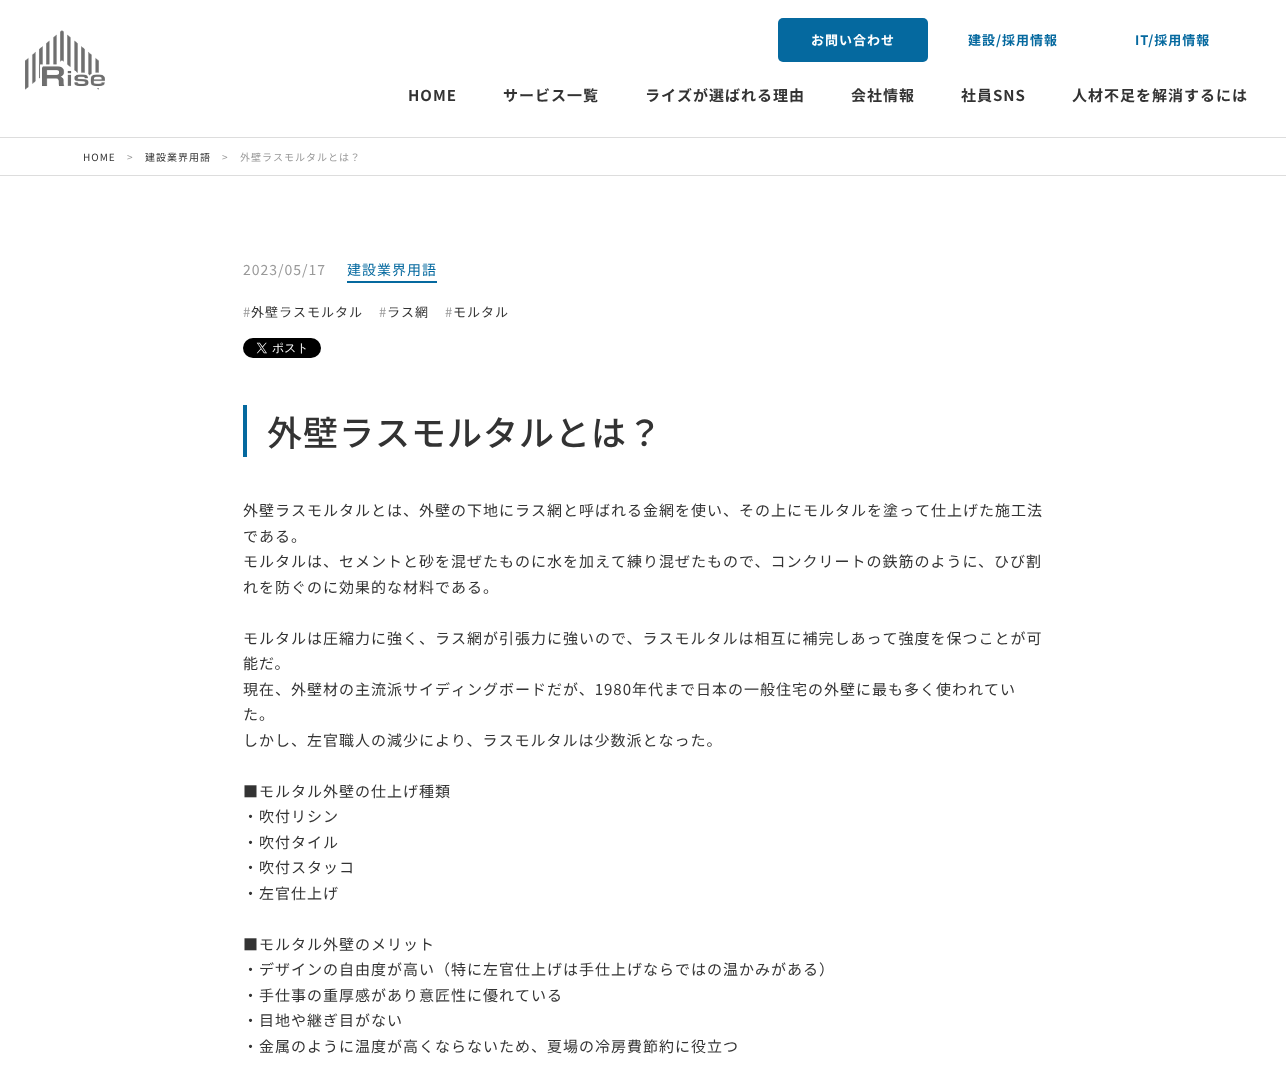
(async () => {
const canvas = document.querySelector("canvas")
canvas.width = 1286
canvas.height = 1066
const c = canvas.getContext("2d")
c.miterLimit = 4
c.fontKerning = "normal"
function T(s,x,y){c.fillText(s,x,y)}
function R(x,y,w,h){c.fillRect(x,y,w,h)}
function Q(x,y,w,h,r){c.beginPath();c.roundRect(x,y,w,h,r);c.fill()}
async function I(src,x,y,w,h){const img=new Image();img.src=src;await img.decode();c.drawImage(img,x,y,w,h)}
c.fillStyle="#fff"
R(0,0,1286,1066)
await I("1.png",25,30,80,60)
c.fillStyle="#05699f"
Q(778,18,150,44,5)
c.letterSpacing="1px"
c.font="bold 13px Noto Sans JP"
c.fillStyle="#fff"
T("お問い合わせ",811,45)
c.fillStyle="#05699f"
T("建設/採用情報",968,45)
T("IT/採用情報",1135,45)
c.font="bold 15px Noto Sans JP"
c.fillStyle="#333"
T("HOME",408,101)
T("サービス一覧",503,101)
T("ライズが選ばれる理由",645,101)
T("会社情報",851,101)
T("社員SNS",961,101)
T("人材不足を解消するには",1072,101)
c.fillStyle="#ddd"
R(0,137,1286,1)
R(0,175,1286,1)
c.font="10px Noto Sans JP"
c.fillStyle="#333"
T("HOME",83,161)
c.fillStyle="#999"
T(">",127,161)
c.fillStyle="#333"
T("建設業界用語",145,161)
c.fillStyle="#999"
T(">",222,161)
T("外壁ラスモルタルとは？",240,161)
c.font="14px Noto Sans JP"
T("2023/05/17",243,275)
c.fillStyle="#05699f"
T("建設業界用語",347,275)
R(347,281,90,2)
c.font="13px Noto Sans JP"
c.fillStyle="#999"
T("#",243,317)
c.fillStyle="#333"
T("外壁ラスモルタル",251,317)
c.fillStyle="#999"
T("#",379,317)
c.fillStyle="#333"
T("ラス網",387,317)
c.fillStyle="#999"
T("#",445,317)
c.fillStyle="#333"
T("モルタル",453,317)
await I("2.png",243,338,78,20)
c.fillStyle="#05699f"
R(243,405,4,52)
c.font="500 35px Noto Sans JP"
c.fillStyle="#333"
T("外壁ラスモルタルとは？",267,446)
c.font="15px Noto Sans JP"
T("外壁ラスモルタルとは、外壁の下地にラス網と呼ばれる金網を使い、その上にモルタルを塗って仕上げた施工法",243,516)
T("である。",243,542)
T("モルタルは、セメントと砂を混ぜたものに水を加えて練り混ぜたもので、コンクリートの鉄筋のように、ひび割",243,567)
T("れを防ぐのに効果的な材料である。",243,593)
T("モルタルは圧縮力に強く、ラス網が引張力に強いので、ラスモルタルは相互に補完しあって強度を保つことが可",243,644)
T("能だ。",243,669)
T("現在、外壁材の主流派サイディングボードだが、1980年代まで日本の一般住宅の外壁に最も多く使われてい",243,695)
T("た。",243,720)
T("しかし、左官職人の減少により、ラスモルタルは少数派となった。",243,746)
T("■モルタル外壁の仕上げ種類",243,797)
T("・吹付リシン",243,822)
T("・吹付タイル",243,848)
T("・吹付スタッコ",243,873)
T("・左官仕上げ",243,899)
T("■モルタル外壁のメリット",243,950)
T("・デザインの自由度が高い（特に左官仕上げは手仕上げならではの温かみがある）",243,975)
T("・手仕事の重厚感があり意匠性に優れている",243,1001)
T("・目地や継ぎ目がない",243,1026)
T("・金属のように温度が高くならないため、夏場の冷房費節約に役立つ",243,1052)
})()
